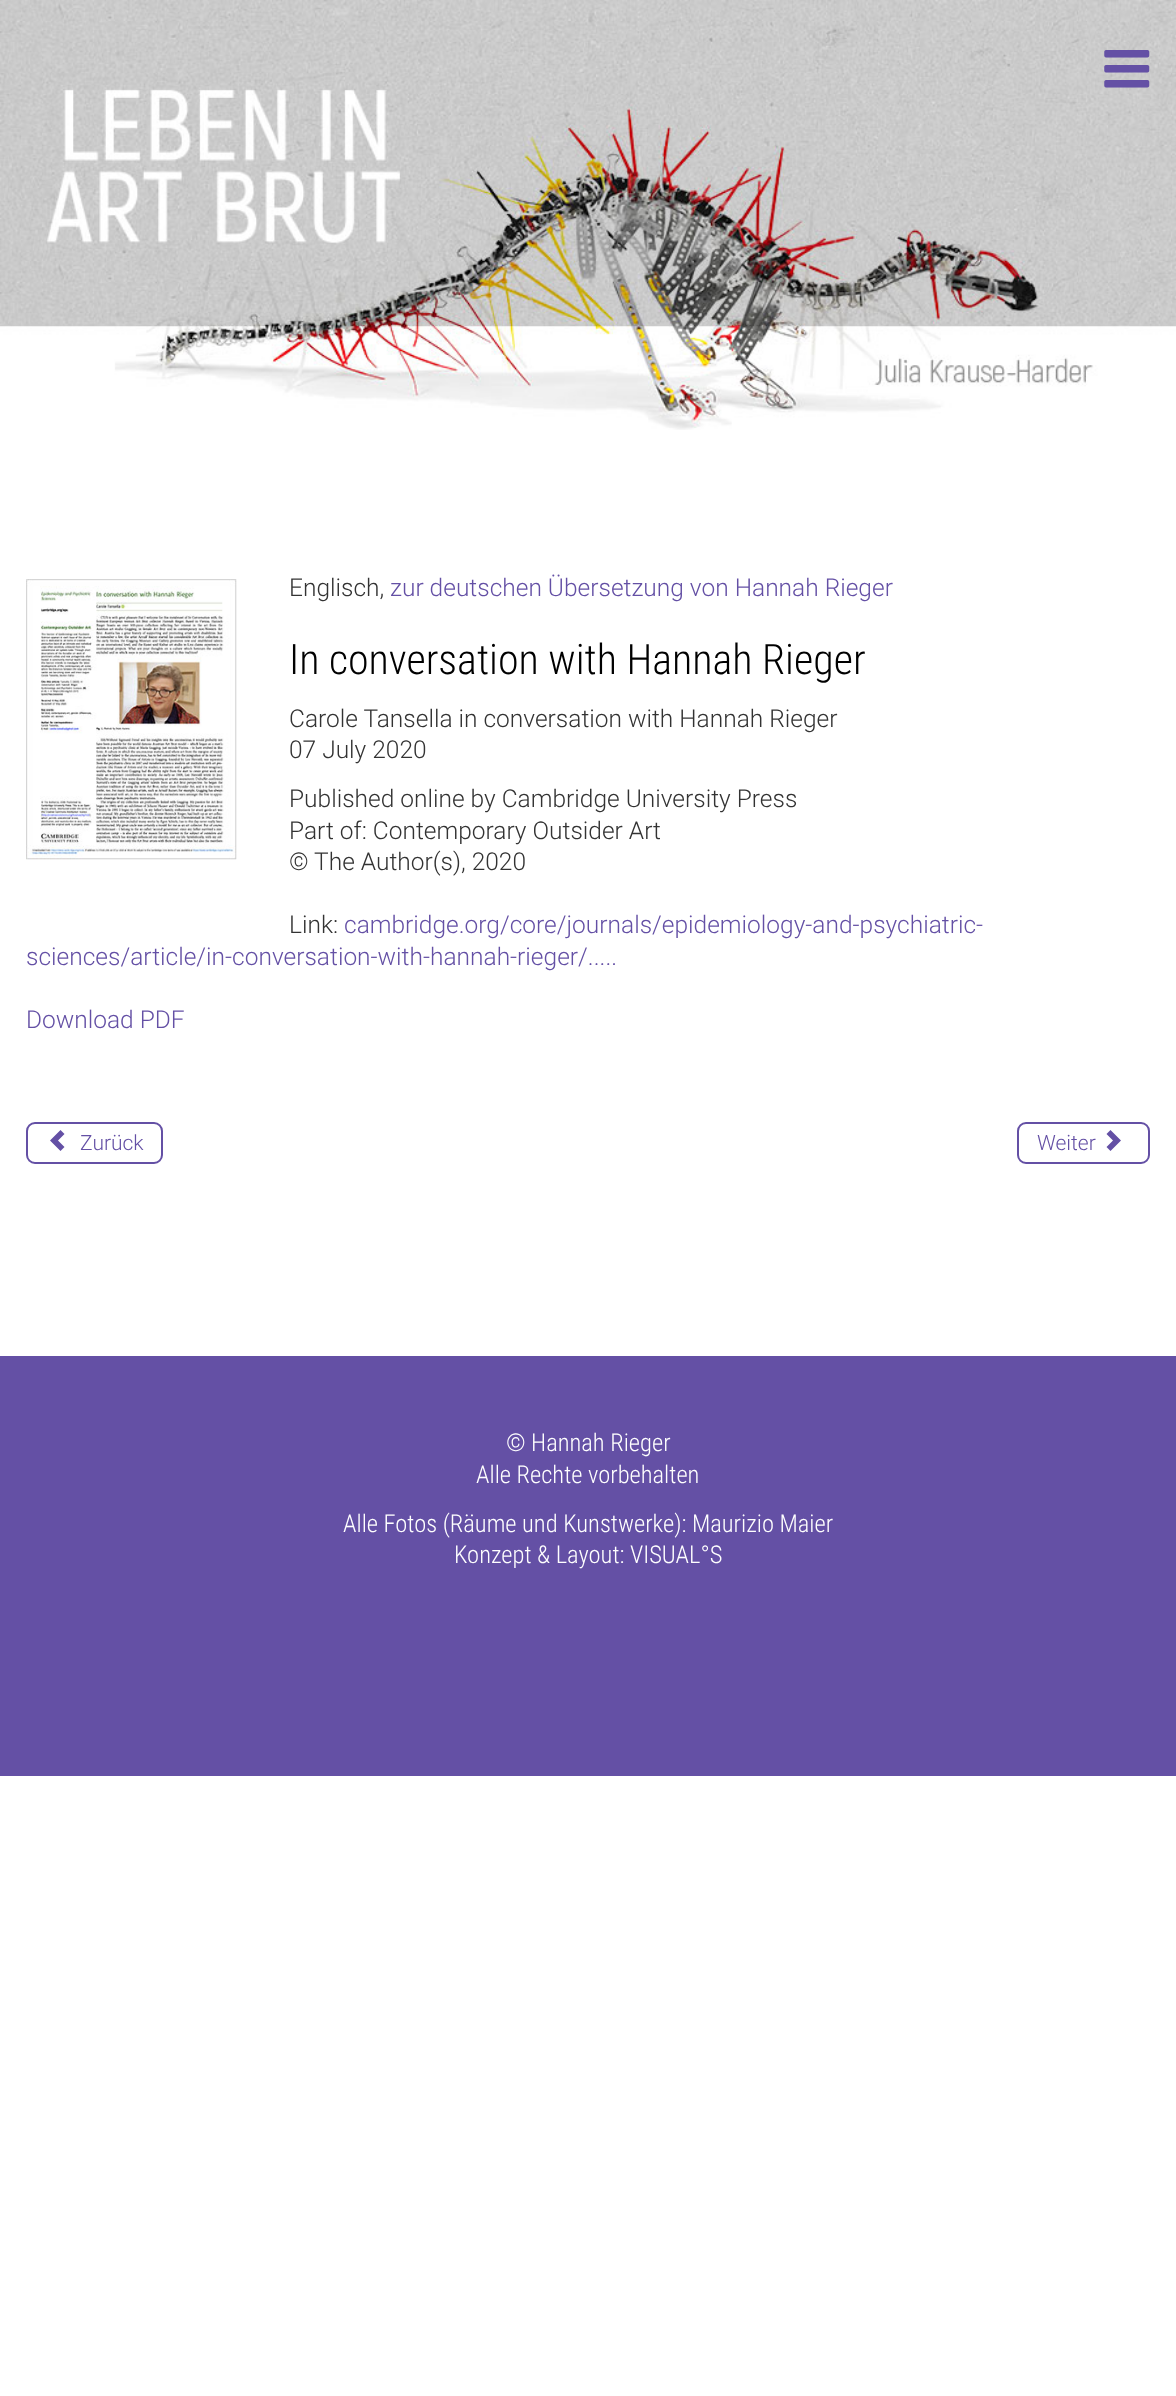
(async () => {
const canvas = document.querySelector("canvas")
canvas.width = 1176
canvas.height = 2396
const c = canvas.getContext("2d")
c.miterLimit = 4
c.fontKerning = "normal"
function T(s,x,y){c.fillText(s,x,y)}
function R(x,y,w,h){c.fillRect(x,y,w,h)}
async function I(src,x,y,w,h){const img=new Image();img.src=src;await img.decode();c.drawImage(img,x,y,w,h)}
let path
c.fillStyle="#fff"
R(0,0,1176,2396)
await I("1.png",0,0,1176,430)
await I("2.png",1104,50,46,38)
await I("3.png",26,579,211,281)
c.font="300 24.5px Roboto"
c.fillStyle="#333"
T("Englisch,",289,596)
c.fillStyle="#6450a5"
T("zur deutschen Übersetzung von Hannah Rieger",390,596)
c.font="300 42px Roboto Condensed"
c.fillStyle="#000"
T("In conversation with Hannah Rieger",289,674)
c.font="300 24.5px Roboto"
c.fillStyle="#333"
T("Carole Tansella in conversation with Hannah Rieger",289,727)
T("07 July 2020",289,758)
T("Published online by Cambridge University Press",289,807)
T("Part of: Contemporary Outsider Art",289,839)
T("© The Author(s), 2020",289,870)
T("Link:",289,933)
c.fillStyle="#6450a5"
T("cambridge.org/core/journals/epidemiology-and-psychiatric-",344,933)
T("sciences/article/in-conversation-with-hannah-rieger/.....",26,965)
T("Download PDF",26,1028)
c.beginPath()
c.roundRect(27,1123,135,40,8)
c.strokeStyle="#6450a5"
c.lineWidth=2
c.stroke()
path = new Path2D("M60.5 1151l-10.5-10.5l10.5-10.5l4 4l-6.5 6.5l6.5 6.5z")
c.fill(path)
c.font="300 21px Roboto"
T("Zurück",80,1150)
c.beginPath()
c.roundRect(1018,1123,131,40,8)
c.stroke()
T("Weiter",1037,1150)
path = new Path2D("M1110.5 1130l10.5 10.5l-10.5 10.5l-4-4l6.5-6.5l-6.5-6.5z")
c.fill(path)
R(0,1356,1176,420)
c.font="300 24.5px Roboto Condensed"
c.fillStyle="#fff"
T("© Hannah Rieger",506,1451)
T("Alle Rechte vorbehalten",476,1483)
T("Alle Fotos (Räume und Kunstwerke): Maurizio Maier",343,1532)
T("Konzept & Layout: VISUAL°S",454,1563)
})()
